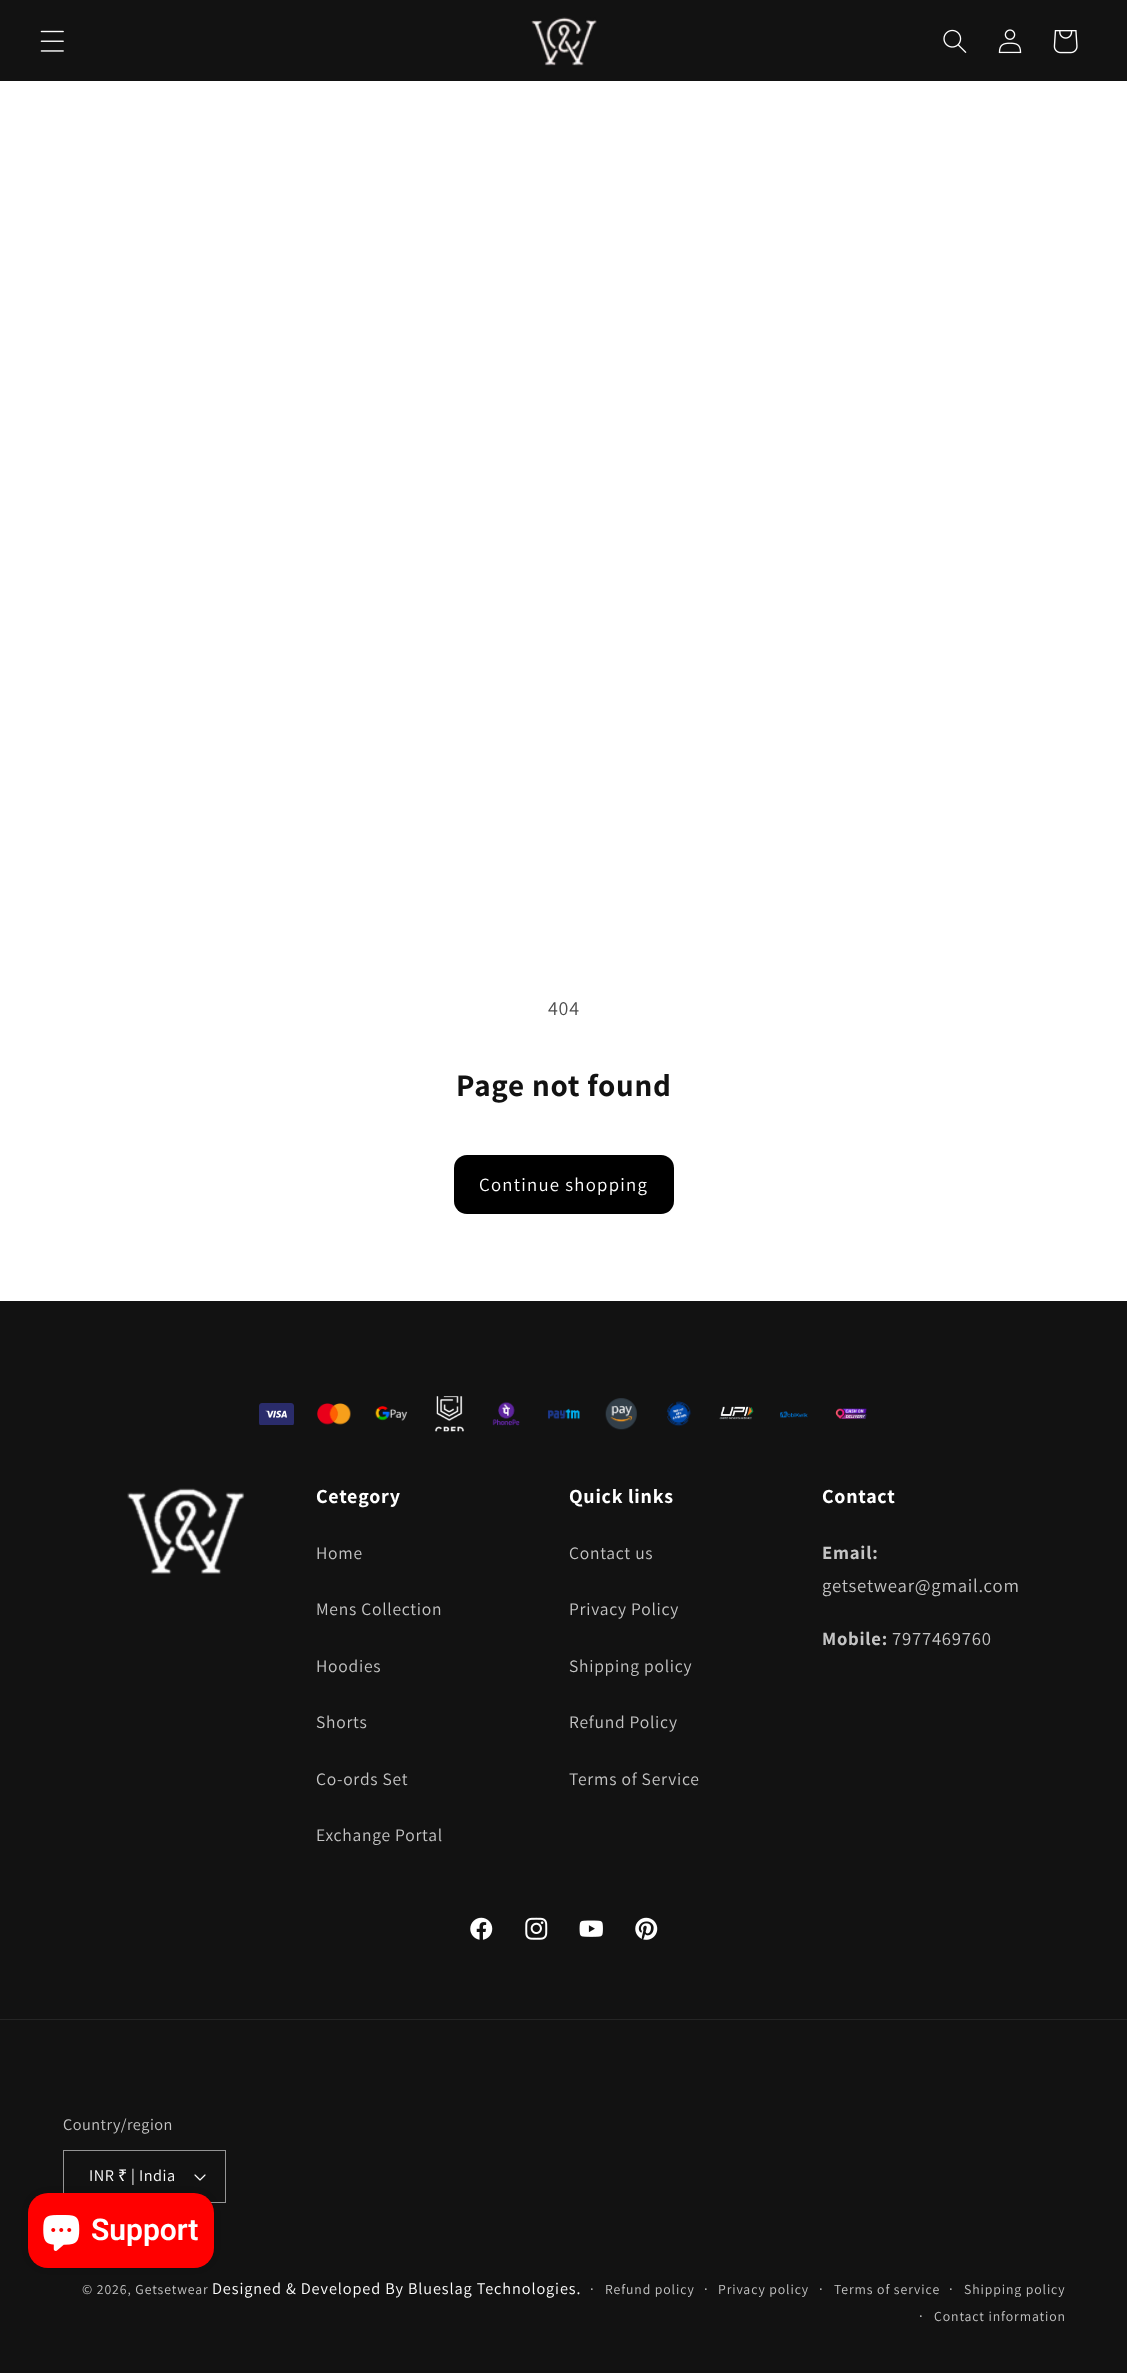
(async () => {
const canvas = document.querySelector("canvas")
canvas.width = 1127
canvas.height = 2373
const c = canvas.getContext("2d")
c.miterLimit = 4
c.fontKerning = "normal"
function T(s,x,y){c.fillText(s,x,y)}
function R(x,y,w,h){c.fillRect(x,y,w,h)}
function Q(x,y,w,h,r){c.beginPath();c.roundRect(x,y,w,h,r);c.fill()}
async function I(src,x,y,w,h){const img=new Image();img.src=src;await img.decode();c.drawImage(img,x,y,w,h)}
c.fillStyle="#fff"
R(0,0,1127,2373)
c.fillStyle="#121212"
R(0,0,1127,81)
await I("1.png",40,30,24,22)
await I("2.png",531,17,66,49)
await I("3.png",943,29,24,24)
await I("4.png",998,29,24,25)
await I("5.png",1053,30,25,24)
c.letterSpacing="0.75px"
c.font="20px Assistant"
c.fillStyle="#4d4d4d"
T("404",548,1015)
c.font="bold 31.25px Assistant"
c.fillStyle="#121212"
T("Page not found",456,1096)
c.fillStyle="#000"
Q(454,1155,220,59,13)
c.letterSpacing="1.25px"
c.font="18.75px Assistant"
c.fillStyle="#fff"
T("Continue shopping",479,1191)
c.fillStyle="#121212"
R(0,1301,1127,1072)
await I("6.png",259,1403,35,22)
await I("7.png",317,1403,34,22)
await I("8.png",375,1406,33,15)
await I("9.png",434,1396,31,36)
await I("10.png",492,1401,28,25)
await I("11.png",547,1408,33,12)
await I("12.png",605,1398,32,32)
await I("13.png",666,1401,26,26)
await I("14.png",719,1406,35,14)
await I("15.png",780,1411,28,7)
await I("16.png",835,1408,32,11)
await I("17.png",127,1488,118,86)
c.letterSpacing="0.75px"
c.font="bold 20px Assistant"
c.fillStyle="#fff"
T("Cetegory",316,1503)
c.font="17.5px Assistant"
c.fillStyle="#c4c4c4"
T("Home",316,1559)
T("Mens Collection",316,1615)
T("Hoodies",316,1672)
T("Shorts",316,1728)
T("Co-ords Set",316,1785)
T("Exchange Portal",316,1841)
c.font="bold 20px Assistant"
c.fillStyle="#fff"
T("Quick links",569,1503)
c.font="17.5px Assistant"
c.fillStyle="#c4c4c4"
T("Contact us",569,1559)
T("Privacy Policy",569,1615)
T("Shipping policy",569,1672)
T("Refund Policy",569,1728)
T("Terms of Service",569,1785)
c.font="bold 20px Assistant"
c.fillStyle="#fff"
T("Contact",822,1503)
c.font="bold 18.75px Assistant"
c.fillStyle="#c4c4c4"
T("Email:",822,1559)
c.font="18.75px Assistant"
T("getsetwear@gmail.com",822,1592)
c.font="bold 18.75px Assistant"
T("Mobile:",822,1645)
c.font="18.75px Assistant"
T("7977469760",892,1645)
await I("18.png",470,1917,23,23)
await I("19.png",525,1917,23,23)
await I("20.png",579,1920,24,17)
await I("21.png",635,1917,23,23)
c.fillStyle="#252525"
R(0,2019,1127,1)
c.letterSpacing="0.5px"
c.font="16.25px Assistant"
c.fillStyle="#c4c4c4"
T("Country/region",63,2130)
await I("22.png",194,2174,12,7)
c.strokeStyle="#949494"
c.strokeRect(63.5,2150.5,162,52)
c.fillStyle="#fff"
T("INR",89,2181)
c.font="16.25px Noto Sans"
T("₹",118,2181)
c.font="16.25px Assistant"
T("| India",131,2181)
c.letterSpacing="0.9px"
c.font="13.75px Assistant"
c.fillStyle="#c4c4c4"
T("© 2026, Getsetwear",82,2294)
c.font="16.25px Assistant"
c.fillStyle="#fff"
T("Designed & Developed By Blueslag Technologies.",212,2294)
c.font="15px Assistant"
c.fillStyle="#c4c4c4"
T("·",590,2294)
c.font="13.75px Assistant"
T("Refund policy",605,2294)
c.font="15px Assistant"
T("·",704,2294)
c.font="13.75px Assistant"
T("Privacy policy",718,2294)
c.font="15px Assistant"
T("·",819,2294)
c.font="13.75px Assistant"
T("Terms of service",834,2294)
c.font="15px Assistant"
T("·",949,2294)
c.font="13.75px Assistant"
T("Shipping policy",964,2294)
c.font="15px Assistant"
T("·",919,2321)
c.font="13.75px Assistant"
T("Contact information",934,2321)
c.fillStyle="#00000026"
c.filter="blur(3px)"
c.beginPath()
c.roundRect(28,2193,186,75,20)
c.fill()
c.filter="none"
c.fillStyle="#f00"
Q(28,2193,186,75,20)
await I("23.png",43,2215,37,36)
c.letterSpacing="0px"
c.font="600 30px Roboto"
c.fillStyle="#fff"
T("Support",91,2240)
})()
